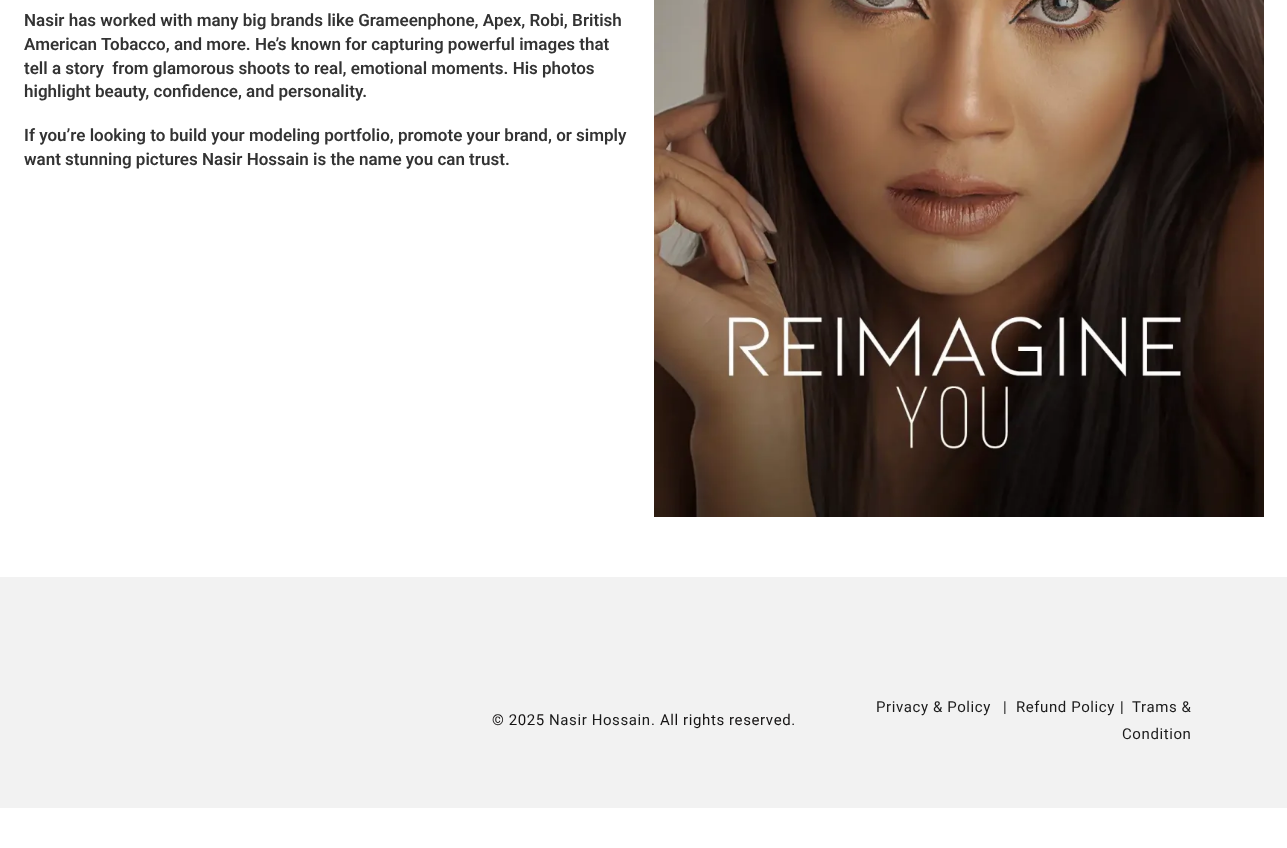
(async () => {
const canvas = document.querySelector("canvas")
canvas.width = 1287
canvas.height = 848
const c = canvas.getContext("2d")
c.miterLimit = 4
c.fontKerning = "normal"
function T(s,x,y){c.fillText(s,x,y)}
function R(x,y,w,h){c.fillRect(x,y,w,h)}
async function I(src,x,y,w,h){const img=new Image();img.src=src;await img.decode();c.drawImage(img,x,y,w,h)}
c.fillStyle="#fff"
R(0,0,1287,848)
c.font="600 17px Roboto"
c.fillStyle="#333"
T("Nasir has worked with many big brands like Grameenphone, Apex, Robi, British",24,26)
T("American Tobacco, and more. He’s known for capturing powerful images that",24,50)
T("tell a story  from glamorous shoots to real, emotional moments. His photos",24,74)
T("highlight beauty, confidence, and personality.",24,97)
T("If you’re looking to build your modeling portfolio, promote your brand, or simply",24,141)
T("want stunning pictures Nasir Hossain is the name you can trust.",24,165)
await I("1.png",654,0,610,517)
c.fillStyle="#f2f2f2"
R(0,577,1287,231)
c.letterSpacing="0.6px"
c.font="15px Roboto"
c.fillStyle="#151313"
T("© 2025",492,725)
c.fillStyle="#1b1b1b"
T("Nasir Hossain",549,725)
c.fillStyle="#151313"
T(". All rights reserved.",651,725)
c.fillStyle="#1b1b1b"
T("Privacy & Policy",876,712)
T("|  Refund Policy",1003,712)
c.fillStyle="#0a0a0a"
T("|",1120,712)
c.fillStyle="#1b1b1b"
T("Trams &",1132,712)
T("Condition",1122,739)
})()
